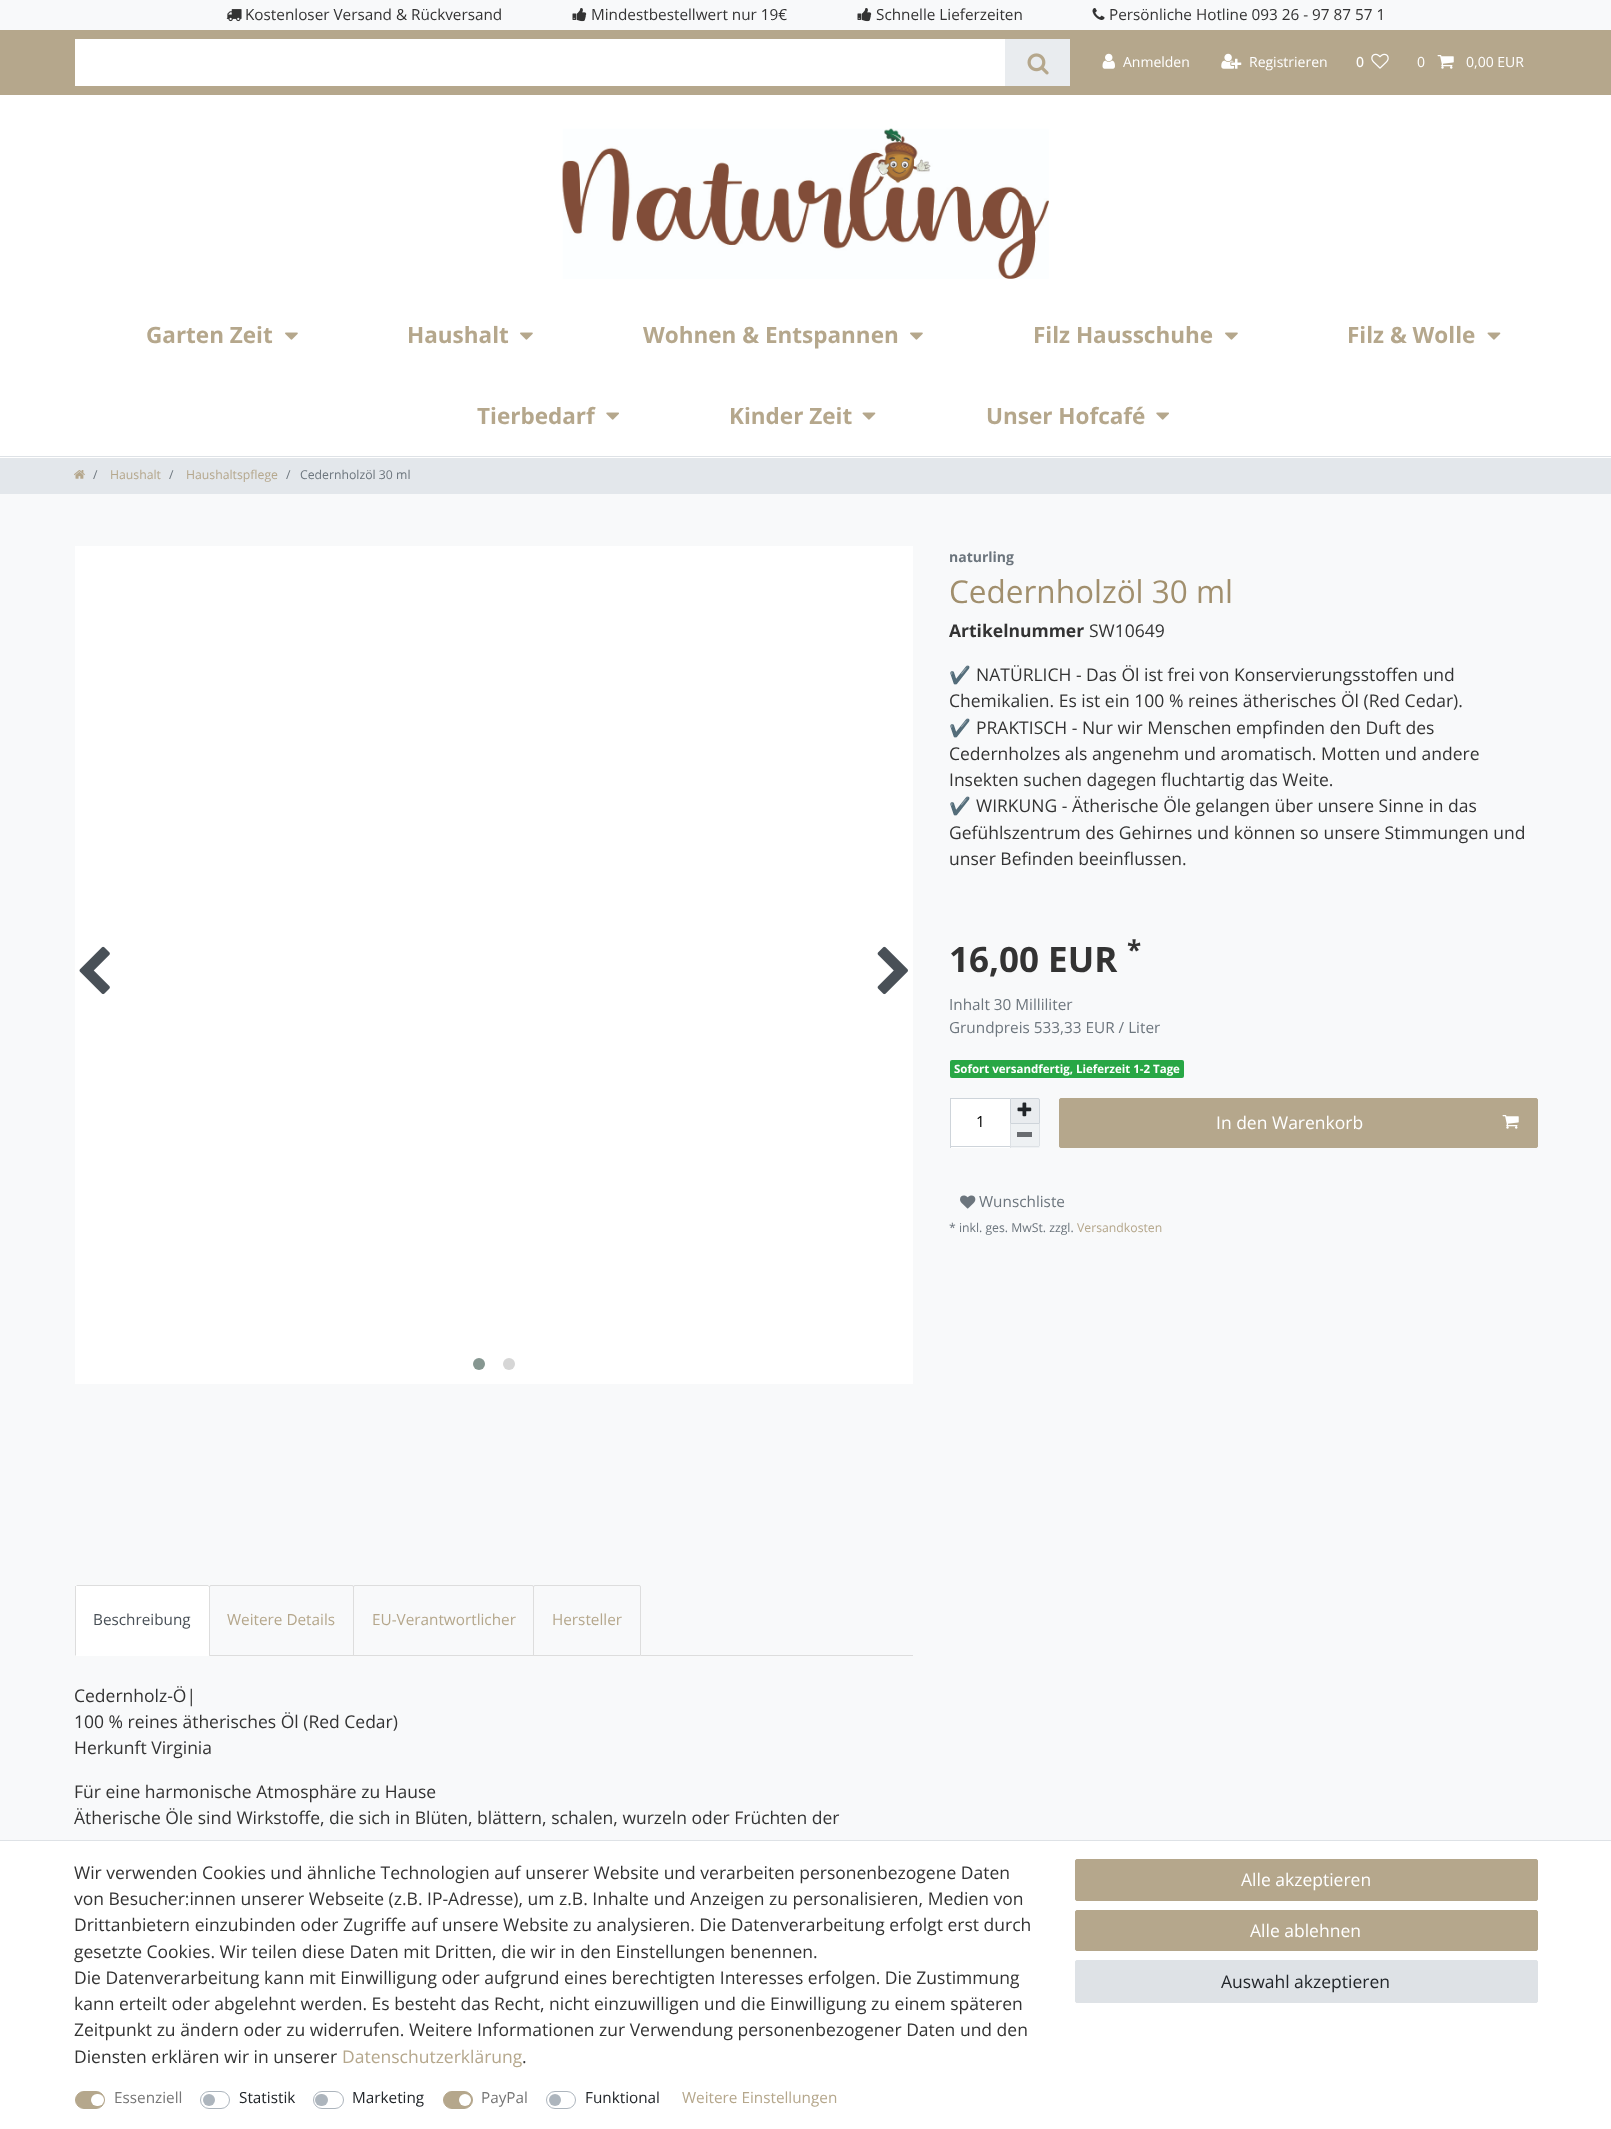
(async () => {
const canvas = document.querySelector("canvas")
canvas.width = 1611
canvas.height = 2129
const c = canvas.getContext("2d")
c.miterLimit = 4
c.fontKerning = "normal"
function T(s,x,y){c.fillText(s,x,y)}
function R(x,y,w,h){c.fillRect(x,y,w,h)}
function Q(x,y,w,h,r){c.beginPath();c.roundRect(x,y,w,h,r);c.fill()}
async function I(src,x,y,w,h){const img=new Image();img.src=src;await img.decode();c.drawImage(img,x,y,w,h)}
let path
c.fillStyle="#f8f9fa"
R(0,0,1611,2129)
await I("1.png",226,9,16,13)
c.font="15.3px Open Sans"
c.fillStyle="#333"
T("Kostenloser Versand & Rückversand",245,20)
await I("2.png",572,8,15,14)
T("Mindestbestellwert nur 19€",591,20)
await I("2.png",857,8,15,14)
T("Schnelle Lieferzeiten",876,20)
await I("3.png",1092,8,13,12)
T("Persönliche Hotline 093 26 - 97 87 57 1",1109,20)
c.fillStyle="#b5a78c"
R(0,30,1611,65)
c.fillStyle="#fff"
R(75,39,930,47)
c.fillStyle="#e9ecef"
R(1005,39,65,47)
await I("4.png",1027,53,22,22)
await I("5.png",1102,53,13,16)
c.font="14px Open Sans"
c.fillStyle="#fff"
T("Anmelden",1123,67)
await I("6.png",1221,53,21,16)
T("Registrieren",1249,67)
c.font="500 14px Open Sans"
T("0",1356,67)
await I("7.png",1371,53,18,16)
c.font="14px Open Sans"
T("0",1417,67)
await I("8.png",1437,55,17,14)
T("0,00 EUR",1466,67)
R(0,95,1611,363)
c.fillStyle="#dee2e6"
R(0,456,1611,1)
await I("9.png",562,128,487,151)
c.font="bold 22.5px Open Sans"
c.fillStyle="#b5a78c"
T("Garten Zeit",146,343)
await I("10.png",285,332,13,8)
T("Haushalt",407,343)
await I("10.png",520,332,13,8)
T("Wohnen & Entspannen",643,343)
await I("10.png",910,332,13,8)
T("Filz Hausschuhe",1033,343)
await I("10.png",1225,332,13,8)
T("Filz & Wolle",1347,343)
await I("11.png",1487,332,14,8)
T("Tierbedarf",477,424)
await I("12.png",606,412,13,8)
T("Kinder Zeit",729,424)
await I("11.png",862,412,14,8)
T("Unser Hofcafé",986,424)
await I("12.png",1156,412,13,8)
c.fillStyle="#e3e7eb"
R(0,458,1611,36)
await I("13.png",74,470,11,9)
c.font="12.25px Open Sans"
c.fillStyle="#6c757d"
T("/",93,479)
c.fillStyle="#b5a78c"
T("Haushalt",110,479)
c.fillStyle="#6c757d"
T("/",169,479)
c.fillStyle="#b5a78c"
T("Haushaltspflege",186,479)
c.fillStyle="#6c757d"
T("/",286,479)
T("Cedernholzöl 30 ml",300,479)
c.fillStyle="#fff"
R(75,546,838,838)
await I("14.png",79,946,31,49)
await I("15.png",877,946,31,49)
c.fillStyle="#869791"
c.beginPath()
c.arc(479,1364,6,0,7)
c.fill()
c.fillStyle="#d6d6d6"
c.beginPath()
c.arc(509,1364,6,0,7)
c.fill()
c.font="bold 14px Open Sans"
c.fillStyle="#6c757d"
T("naturling",949,562)
c.font="31.5px Open Sans"
c.fillStyle="#a18f6d"
T("Cedernholzöl 30 ml",949,603)
c.font="bold 17.5px Open Sans"
c.fillStyle="#333"
T("Artikelnummer",949,637)
c.font="17.5px Open Sans"
T("SW10649",1089,637)
c.font="17.5px Noto Color Emoji"
T("✔️",949,681)
c.font="17.5px Open Sans"
T("NATÜRLICH - Das Öl ist frei von Konservierungsstoffen und",976,681)
T("Chemikalien. Es ist ein 100 % reines ätherisches Öl (Red Cedar).",949,707)
c.font="17.5px Noto Color Emoji"
T("✔️",949,734)
c.font="17.5px Open Sans"
T("PRAKTISCH - Nur wir Menschen empfinden den Duft des",976,734)
T("Cedernholzes als angenehm und aromatisch. Motten und andere",949,760)
T("Insekten suchen dagegen fluchtartig das Weite.",949,786)
c.font="17.5px Noto Color Emoji"
T("✔️",949,812)
c.font="17.5px Open Sans"
T("WIRKUNG - Ätherische Öle gelangen über unsere Sinne in das",976,812)
T("Gefühlszentrum des Gehirnes und können so unsere Stimmungen und",949,839)
T("unser Befinden beeinflussen.",949,865)
c.font="bold 35px Open Sans"
T("16,00 EUR",949,972)
c.font="bold 26px Open Sans"
T("*",1127,959)
c.font="15.3px Open Sans"
c.fillStyle="#6c757d"
T("Inhalt 30 Milliliter",949,1010)
T("Grundpreis 533,33 EUR / Liter",949,1033)
c.fillStyle="#28a745"
Q(950,1060,234,18,2)
c.font="bold 11.5px Open Sans"
c.fillStyle="#fff"
T("Sofort versandfertig, Lieferzeit 1-2 Tage",954,1073)
R(951,1099,59,49)
c.fillStyle="#ced4da"
R(950,1098,60,1)
R(950,1146,60,1)
R(950,1098,1,50)
c.font="15.3px Open Sans"
c.fillStyle="#000"
T("1",976,1127)
c.fillStyle="#e9ecef"
c.beginPath()
c.roundRect(1010.5,1098.5,29,25,[0,1.5,0,0])
c.fill()
c.strokeStyle="#ced4da"
c.stroke()
await I("16.png",1017,1102,15,15)
c.fillStyle="#eef1f3"
c.beginPath()
c.roundRect(1010,1124,30,24,[0,0,2,0])
c.fill()
c.fillStyle="#dde1e5"
R(1039,1124,1,22)
R(1010,1146,29,1)
R(1010,1124,1,24)
c.fillStyle="#696c70"
R(1017,1132,15,5)
c.fillStyle="#b5a78c"
c.beginPath()
c.roundRect(1059.5,1098.5,478,49,1.5)
c.fill()
c.strokeStyle="#b5a78c"
c.stroke()
c.font="17.5px Open Sans"
c.fillStyle="#fff"
T("In den Warenkorb",1216,1129)
await I("8.png",1502,1115,17,14)
await I("17.png",960,1195,16,14)
c.font="15.3px Open Sans"
c.fillStyle="#6c757d"
T("Wunschliste",979,1207)
c.font="12.25px Open Sans"
T("* inkl. ges. MwSt. zzgl.",949,1232)
c.fillStyle="#b5a78c"
T("Versandkosten",1077,1232)
c.fillStyle="#ddd"
R(641,1655,272,1)
c.fillStyle="#fff"
c.beginPath()
c.roundRect(75,1585,135,71,[2,2,0,0])
c.fill()
c.fillStyle="#ddd"
path = new Path2D("M77 1585l-1 1h1h131h1l-1-1z")
c.fill(path)
path = new Path2D("M210 1656v-69l-1-1h-1l1 1v68z")
c.fill(path)
path = new Path2D("M75 1586v70l1-1v-68v-1z")
c.fill(path)
c.font="15.3px Open Sans"
c.fillStyle="#495057"
T("Beschreibung",93,1625)
c.beginPath()
c.roundRect(209.5,1585.5,144,70,[1.5,1.5,0,0])
c.strokeStyle="#ddd"
c.stroke()
c.fillStyle="#b5a78c"
T("Weitere Details",227,1625)
c.beginPath()
c.roundRect(353.5,1585.5,180,70,[1.5,1.5,0,0])
c.stroke()
T("EU-Verantwortlicher",372,1625)
c.beginPath()
c.roundRect(533.5,1585.5,107,70,[1.5,1.5,0,0])
c.stroke()
T("Hersteller",552,1625)
c.font="17.5px Open Sans"
c.fillStyle="#333"
T("Cedernholz-Ö|",74,1702)
T("100 % reines ätherisches Öl (Red Cedar)",74,1728)
T("Herkunft Virginia",74,1754)
T("Für eine harmonische Atmosphäre zu Hause",74,1798)
T("Ätherische Öle sind Wirkstoffe, die sich in Blüten, blättern, schalen, wurzeln oder Früchten der",74,1824)
c.fillStyle="#fff"
R(0,1841,1611,288)
c.fillStyle="#dee2e6"
R(0,1840,1611,1)
c.fillStyle="#333"
T("Wir verwenden Cookies und ähnliche Technologien auf unserer Website und verarbeiten personenbezogene Daten",74,1879)
T("von Besucher:innen unserer Webseite (z.B. IP-Adresse), um z.B. Inhalte und Anzeigen zu personalisieren, Medien von",74,1905)
T("Drittanbietern einzubinden oder Zugriffe auf unsere Website zu analysieren. Die Datenverarbeitung erfolgt erst durch",74,1931)
T("gesetzte Cookies. Wir teilen diese Daten mit Dritten, die wir in den Einstellungen benennen.",74,1958)
T("Die Datenverarbeitung kann mit Einwilligung oder aufgrund eines berechtigten Interesses erfolgen. Die Zustimmung",74,1984)
T("kann erteilt oder abgelehnt werden. Es besteht das Recht, nicht einzuwilligen und die Einwilligung zu einem späteren",74,2010)
T("Zeitpunkt zu ändern oder zu widerrufen. Weitere Informationen zur Verwendung personenbezogener Daten und den",74,2036)
T("Diensten erklären wir in unserer",74,2063)
c.fillStyle="#b5a78c"
T("Datenschutzerklärung",342,2063)
c.fillStyle="#333"
T(".",522,2063)
c.fillStyle="#b5a78c"
c.beginPath()
c.roundRect(75.5,2091.5,29,17,8.5)
c.fill()
c.strokeStyle="#b5a78c"
c.stroke()
c.font="15.3px Open Sans"
c.fillStyle="#767676"
T("Essenziell",114,2103)
c.fillStyle="#fff"
Q(91,2094,13,12,6)
c.beginPath()
c.roundRect(200.5,2091.5,29,17,8.5)
c.strokeStyle="#adb5bd"
c.stroke()
c.fillStyle="#212529"
T("Statistik",239,2103)
c.fillStyle="#adb5bd"
c.beginPath()
c.arc(209,2100,6,0,7)
c.fill()
c.beginPath()
c.roundRect(313.5,2091.5,30,17,8.5)
c.stroke()
c.fillStyle="#212529"
T("Marketing",352,2103)
c.fillStyle="#adb5bd"
Q(315,2094,13,12,6)
c.fillStyle="#b5a78c"
c.beginPath()
c.roundRect(443.5,2091.5,29,17,8.5)
c.fill()
c.strokeStyle="#b5a78c"
c.stroke()
c.fillStyle="#767676"
T("PayPal",481,2103)
c.fillStyle="#fff"
c.beginPath()
c.arc(465,2100,6,0,7)
c.fill()
c.beginPath()
c.roundRect(546.5,2091.5,29,17,8.5)
c.strokeStyle="#adb5bd"
c.stroke()
c.fillStyle="#212529"
T("Funktional",585,2103)
c.fillStyle="#adb5bd"
c.beginPath()
c.arc(555,2100,6,0,7)
c.fill()
c.fillStyle="#b5a78c"
T("Weitere Einstellungen",682,2103)
c.beginPath()
c.roundRect(1075.5,1859.5,462,41,1.5)
c.fill()
c.strokeStyle="#b5a78c"
c.stroke()
c.font="17.5px Open Sans"
c.fillStyle="#fff"
T("Alle akzeptieren",1241,1886)
c.fillStyle="#b5a78c"
c.beginPath()
c.roundRect(1075.5,1910.5,462,40,1.5)
c.fill()
c.stroke()
c.fillStyle="#fff"
T("Alle ablehnen",1250,1937)
c.fillStyle="#dee2e6"
c.beginPath()
c.roundRect(1075.5,1960.5,462,42,1.5)
c.fill()
c.strokeStyle="#dee2e6"
c.stroke()
c.fillStyle="#212529"
T("Auswahl akzeptieren",1221,1988)
})()
